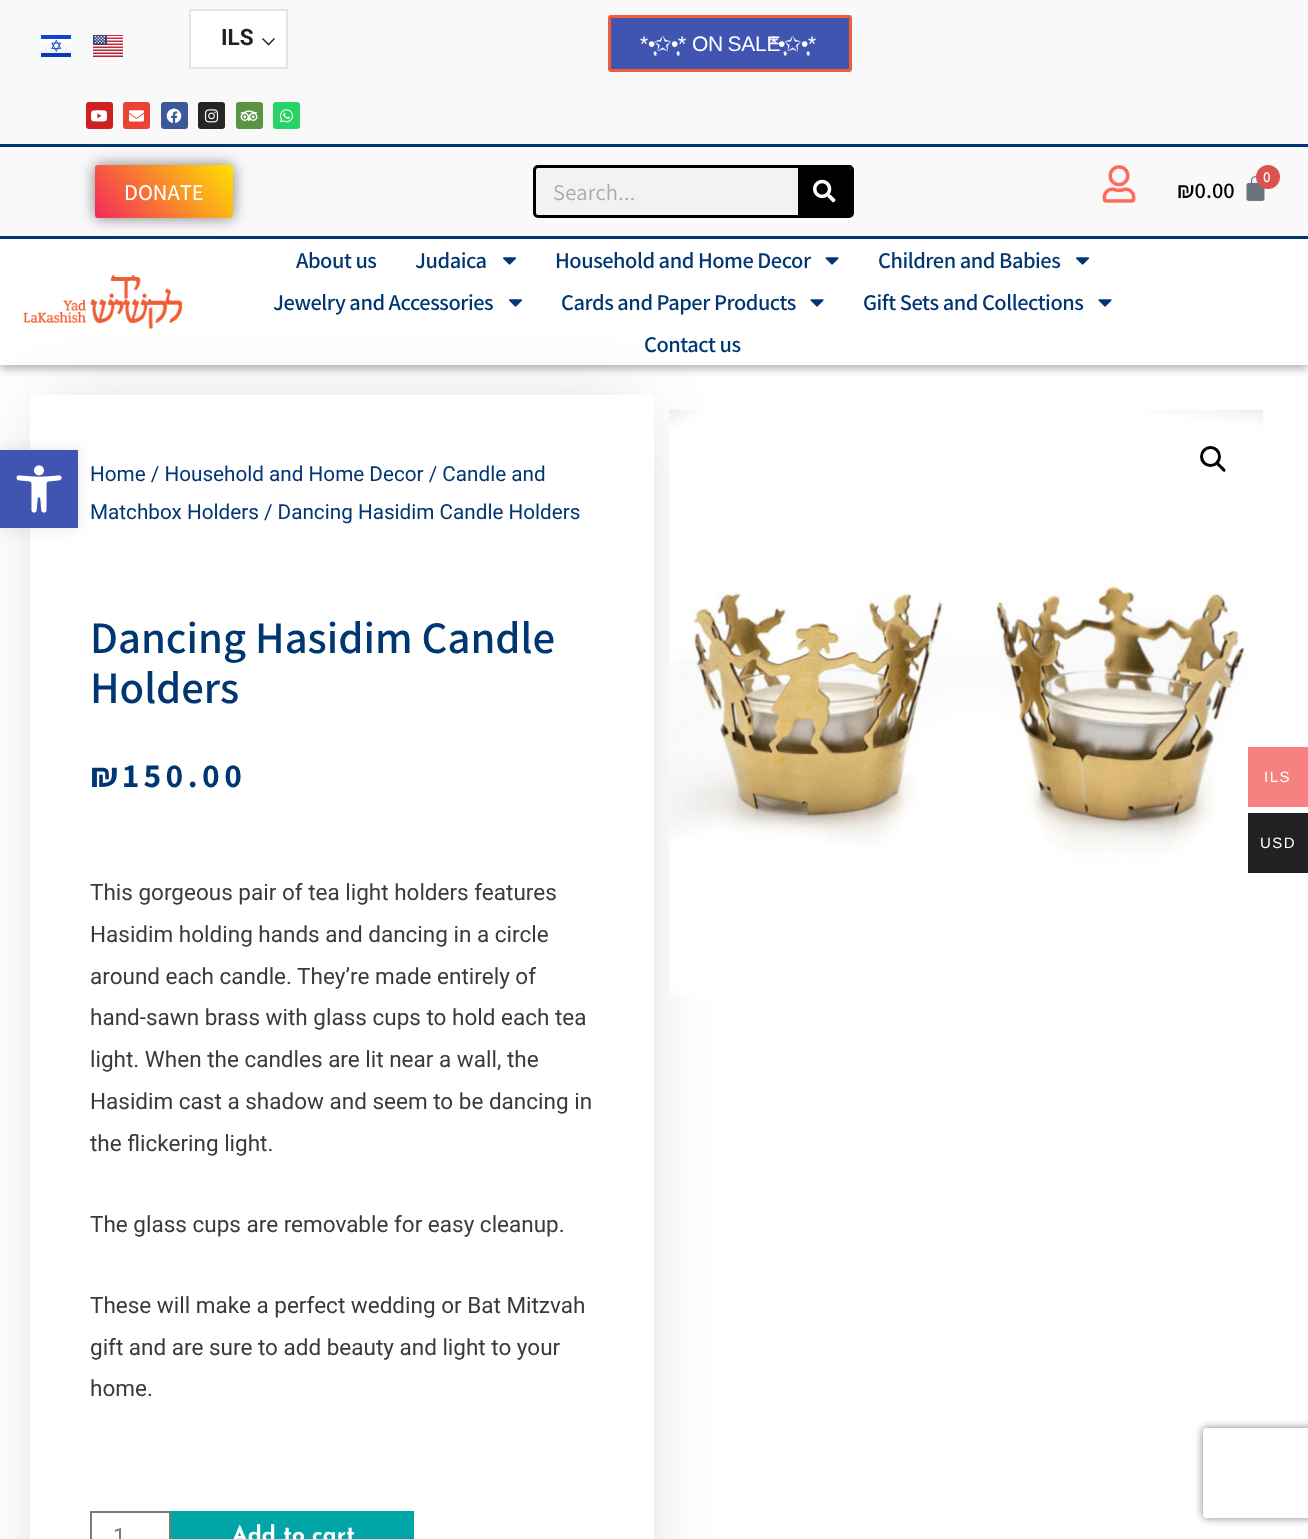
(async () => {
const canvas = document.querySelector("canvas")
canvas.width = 1308
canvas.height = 1539
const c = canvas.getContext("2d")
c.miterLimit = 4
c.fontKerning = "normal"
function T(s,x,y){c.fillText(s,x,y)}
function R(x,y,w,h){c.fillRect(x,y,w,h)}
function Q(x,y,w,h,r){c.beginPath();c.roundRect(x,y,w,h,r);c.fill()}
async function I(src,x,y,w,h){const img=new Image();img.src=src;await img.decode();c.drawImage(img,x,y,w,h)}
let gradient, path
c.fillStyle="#fff"
R(0,0,1308,1539)
c.fillStyle="#0000001a"
c.filter="blur(7.5px)"
c.beginPath()
c.rect(0,450,78,78)
c.fill()
c.filter="none"
c.fillStyle="#0000004a"
c.filter="blur(4px)"
c.beginPath()
c.rect(0,243,1308,126)
c.fill()
c.filter="none"
c.fillStyle="#fff"
R(0,239,1308,126)
await I("13.png",23,274,159,55)
c.save()
path = new Path2D("M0 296h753v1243h-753zm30 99h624v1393h-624z")
c.clip(path,"evenodd")
c.fillStyle="#0000002b"
c.filter="blur(37.5px)"
c.beginPath()
c.rect(45,410,594,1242)
c.fill()
c.filter="none"
c.restore()
c.fillStyle="#4054b2"
R(0,450,78,78)
await I("1.png",16,465,46,48)
c.fillStyle="#f9f9f9"
R(0,0,1308,144)
c.fillStyle="#003672"
R(0,144,1308,3)
await I("2.png",41,35,30,22)
await I("3.png",93,35,30,22)
c.fillStyle="#fff"
c.beginPath()
c.rect(190,10,97,58)
c.fill()
c.strokeStyle="#e5e5e5"
c.lineWidth=2
c.stroke()
c.font="bold 22.5px Roboto"
c.fillStyle="#212121"
T("ILS",221,45)
path = new Path2D("M274 38l1 1l-6.5 6.5l-1-1z")
c.fill(path)
path = new Path2D("M263 38l6.5 6.5l-1 1l-6.5-6.5z")
c.fill(path)
c.fillStyle="#4054b2"
c.beginPath()
c.roundRect(609.5,16.5,241,54,1.5)
c.fill()
c.strokeStyle="#f15e34"
c.lineWidth=3
c.stroke()
c.letterSpacing="-0.25px"
c.font="21px Liberation Sans"
c.fillStyle="#fff"
T("*•̩̩͙",640,51)
c.font="21px DejaVu Sans"
T("✩",654,51)
c.font="21px Liberation Sans"
T("•̩̩͙*",671,51)
c.wordSpacing="-1px"
T("ON SALE",692,51)
c.wordSpacing="0px"
T("*•̩̩͙",770,51)
c.font="21px DejaVu Sans"
T("✩",784,51)
c.font="21px Liberation Sans"
T("•̩̩͙*",801,51)
c.fillStyle="#cd201f"
Q(86,102,27,27,3)
await I("4.png",91,110,16,12)
c.fillStyle="#ea4335"
Q(123,102,27,27,3)
await I("5.png",129,110,15,12)
c.fillStyle="#3b5998"
Q(161,102,27,27,3)
await I("6.png",166,108,16,15)
c.fillStyle="#262626"
Q(198,102,27,27,3)
await I("7.png",204,109,15,14)
c.fillStyle="#589442"
Q(236,102,27,27,3)
await I("8.png",240,110,18,12)
c.fillStyle="#25d366"
Q(273,102,27,27,3)
await I("9.png",280,109,14,14)
c.fillStyle="#f9f9f9"
R(0,147,1308,89)
c.fillStyle="#003672"
R(0,236,1308,3)
c.fillStyle="#00000080"
c.filter="blur(7.5px)"
c.beginPath()
c.roundRect(95,165,138,53,3)
c.fill()
c.filter="none"
gradient = c.createLinearGradient(217,146,110,236)
gradient.addColorStop(0,"#ffe200")
gradient.addColorStop(1,"#f2295b")
c.fillStyle = gradient
Q(95,165,138,53,3)
c.letterSpacing="0px"
c.font="500 22.5px Assistant"
c.fillStyle="#fff"
T("DONATE",124,200)
c.fillStyle="#f1f2f3"
c.beginPath()
c.roundRect(534.5,166.5,318,50,3.5)
c.fill()
c.strokeStyle="#000"
c.stroke()
c.letterSpacing="0.25px"
c.font="22.5px Assistant"
c.fillStyle="#aaa"
T("Search...",553,200)
c.fillStyle="#000"
c.beginPath()
c.roundRect(798,168,53,47,[0,1.5,1.5,0])
c.fill()
await I("10.png",813,179,23,24)
await I("11.png",1102,165,34,38)
await I("12.png",1246,176,19,25)
c.fillStyle="#d9534f"
c.beginPath()
c.arc(1268,177,12,0,7)
c.fill()
c.letterSpacing="0px"
c.font="600 15px Assistant"
c.fillStyle="#fff"
T("0",1263,182)
c.font="600 22.5px Assistant"
c.fillStyle="#000"
T("₪0.00",1177,198)
c.letterSpacing="-0.45px"
c.fillStyle="#003672"
T("About us",296,268)
T("Judaica",415,268)
await I("14.png",503,257,13,8)
T("Household and Home Decor",555,268)
await I("15.png",825,257,14,8)
T("Children and Babies",878,268)
await I("14.png",1076,257,13,8)
T("Jewelry and Accessories",273,310)
await I("16.png",509,299,13,8)
T("Cards and Paper Products",561,310)
await I("15.png",810,299,14,8)
T("Gift Sets and Collections",863,310)
await I("15.png",1098,299,14,8)
T("Contact us",644,352)
c.letterSpacing="0px"
c.font="20.7px Roboto"
T("Home / Household and Home Decor / Candle and",90,481)
T("Matchbox Holders / Dancing Hasidim Candle Holders",90,519)
c.font="600 45px Assistant"
T("Dancing Hasidim Candle",90,653)
T("Holders",90,703)
c.letterSpacing="4.5px"
c.font="bold 33.75px Assistant"
T("₪150.00",90,787)
c.letterSpacing="0px"
c.font="22.5px Roboto"
c.fillStyle="#3a3a3a"
T("This gorgeous pair of tea light holders features",90,900)
T("Hasidim holding hands and dancing in a circle",90,942)
T("around each candle. They’re made entirely of",90,984)
T("hand-sawn brass with glass cups to hold each tea",90,1025)
T("light. When the candles are lit near a wall, the",90,1067)
T("Hasidim cast a shadow and seem to be dancing in",90,1109)
T("the flickering light.",90,1151)
T("The glass cups are removable for easy cleanup.",90,1232)
T("These will make a perfect wedding or Bat Mitzvah",90,1313)
T("gift and are sure to add beauty and light to your",90,1355)
T("home.",90,1396)
c.strokeStyle="#7a7a7a"
c.lineWidth=2
c.strokeRect(91,1512,79,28)
c.fillStyle="#7a7a7a"
T("1",113,1544)
c.fillStyle="#00a5a8"
R(171,1511,243,28)
c.font="bold 22.5px Josefin Sans"
c.fillStyle="#fff"
T("Add to cart",232,1542)
await I("17.png",669,409,594,590)
c.beginPath()
c.arc(1210.5,456.5,9,0,7)
c.strokeStyle="#000"
c.lineWidth=3
c.stroke()
c.fillStyle="#000"
path = new Path2D("M1217 463c1.5-2 4 2 5 3c1 1 5 3.5 3 5.5c-1.5 1.5-4-2.5-5-3.5c-1-1-5-3.5-3-5z")
c.fill(path)
c.save()
path = new Path2D("M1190 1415h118v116h-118zm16 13h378c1.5 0 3 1.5 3 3v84c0 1.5-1.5 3-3 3h-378c-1.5 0-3-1.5-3-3v-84c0-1.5 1.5-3 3-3z")
c.clip(path,"evenodd")
c.fillStyle="#808080"
c.filter="blur(4px)"
c.beginPath()
c.roundRect(1203,1428,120,90,3)
c.fill()
c.filter="none"
c.restore()
c.fillStyle="#f78080"
R(1248,747,60,60)
c.letterSpacing="1.5px"
c.font="15px Liberation Sans"
c.fillStyle="#fff"
T("ILS",1264,782)
c.fillStyle="#212121"
R(1248,813,60,60)
c.fillStyle="#fff"
T("USD",1260,848)
})()
